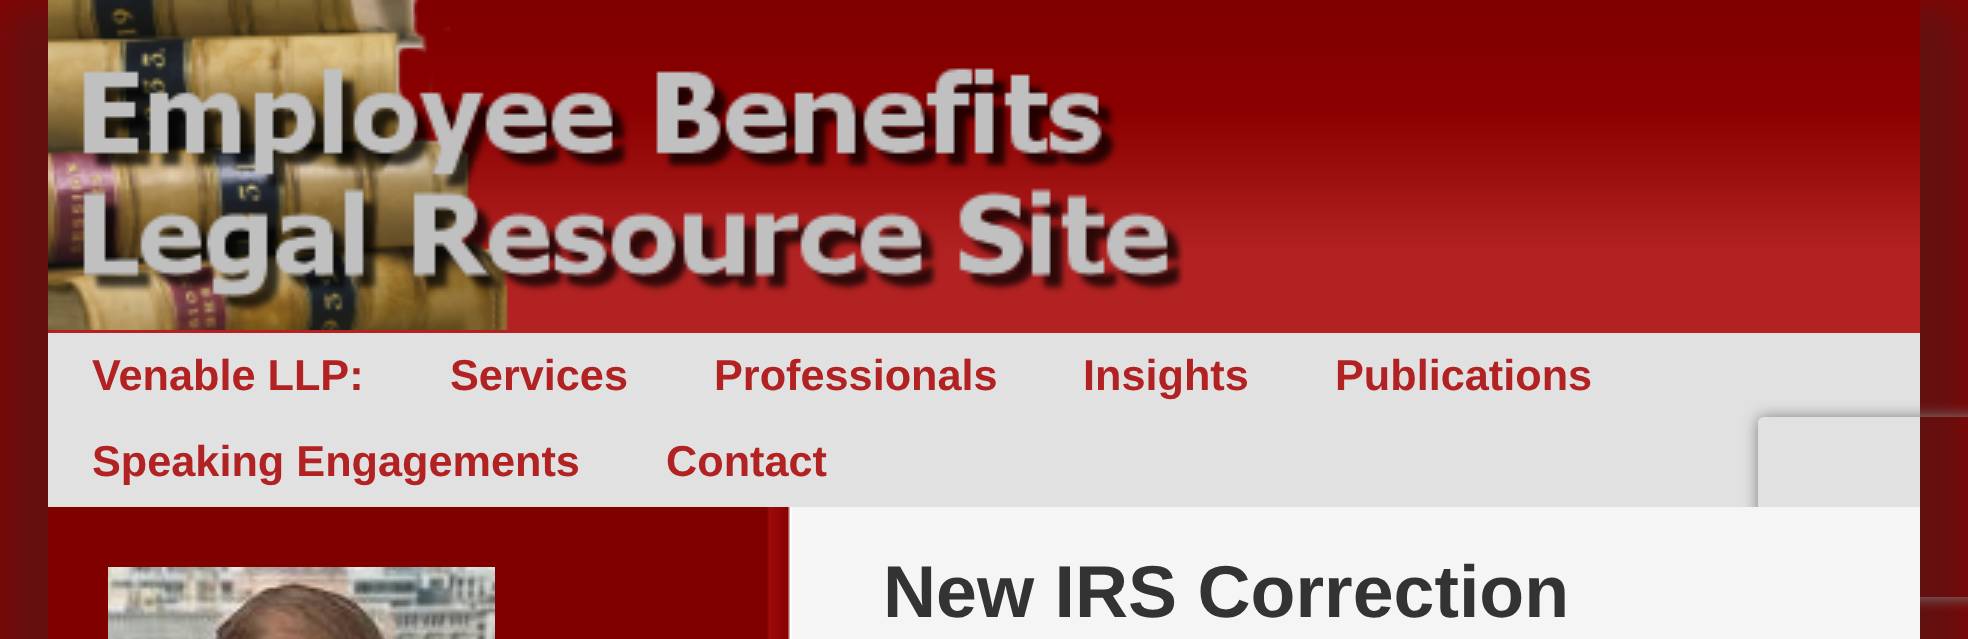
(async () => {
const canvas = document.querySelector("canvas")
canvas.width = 1968
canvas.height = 639
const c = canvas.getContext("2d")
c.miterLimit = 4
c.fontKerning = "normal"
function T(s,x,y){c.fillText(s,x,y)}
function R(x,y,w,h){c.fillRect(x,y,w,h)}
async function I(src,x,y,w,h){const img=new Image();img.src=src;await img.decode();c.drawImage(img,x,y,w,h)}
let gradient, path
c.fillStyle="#8b0000"
R(0,0,1968,639)
c.fillStyle="#4e1818a6"
c.filter="blur(22.5px)"
c.beginPath()
c.rect(0,0,1872,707)
c.fill()
c.filter="none"
c.fillStyle="#fff"
R(788,507,4,132)
c.save()
c.beginPath()
c.rect(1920,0,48,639)
c.clip()
c.fillStyle="#4e1818a6"
c.filter="blur(22.5px)"
c.beginPath()
c.rect(96,0,1872,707)
c.fill()
c.filter="none"
c.restore()
gradient = c.createLinearGradient(48,0,48,333)
gradient.addColorStop(.03,"#800000")
gradient.addColorStop(.33,"#8b0000")
gradient.addColorStop(.76,"#b22222")
c.fillStyle = gradient
R(48,0,1872,333)
await I("1.png",48,0,1137,330)
c.fillStyle="#e1e1e1"
R(48,333,1872,174)
c.font="bold 43.25px Liberation Sans"
c.fillStyle="#b22222"
T("Venable LLP:",92,390)
T("Services",450,390)
T("Professionals",714,390)
T("Insights",1083,390)
T("Publications",1335,390)
T("Speaking Engagements",92,476)
T("Contact",666,476)
await I("2.png",48,507,742,132)
await I("3.png",108,567,387,72)
c.save()
path = new Path2D("M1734 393h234v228h-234zm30 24h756c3.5 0 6 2.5 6 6v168c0 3.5-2.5 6-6 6h-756c-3.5 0-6-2.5-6-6v-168c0-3.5 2.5-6 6-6z")
c.clip(path,"evenodd")
c.fillStyle="#808080"
c.filter="blur(7.5px)"
c.beginPath()
c.roundRect(1758,417,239,180,6)
c.fill()
c.filter="none"
c.restore()
c.fillStyle="#f5f5f5"
R(792,507,1128,132)
c.font="bold 73.5px Liberation Sans"
c.fillStyle="#333"
T("New IRS Correction",883,617)
})()
